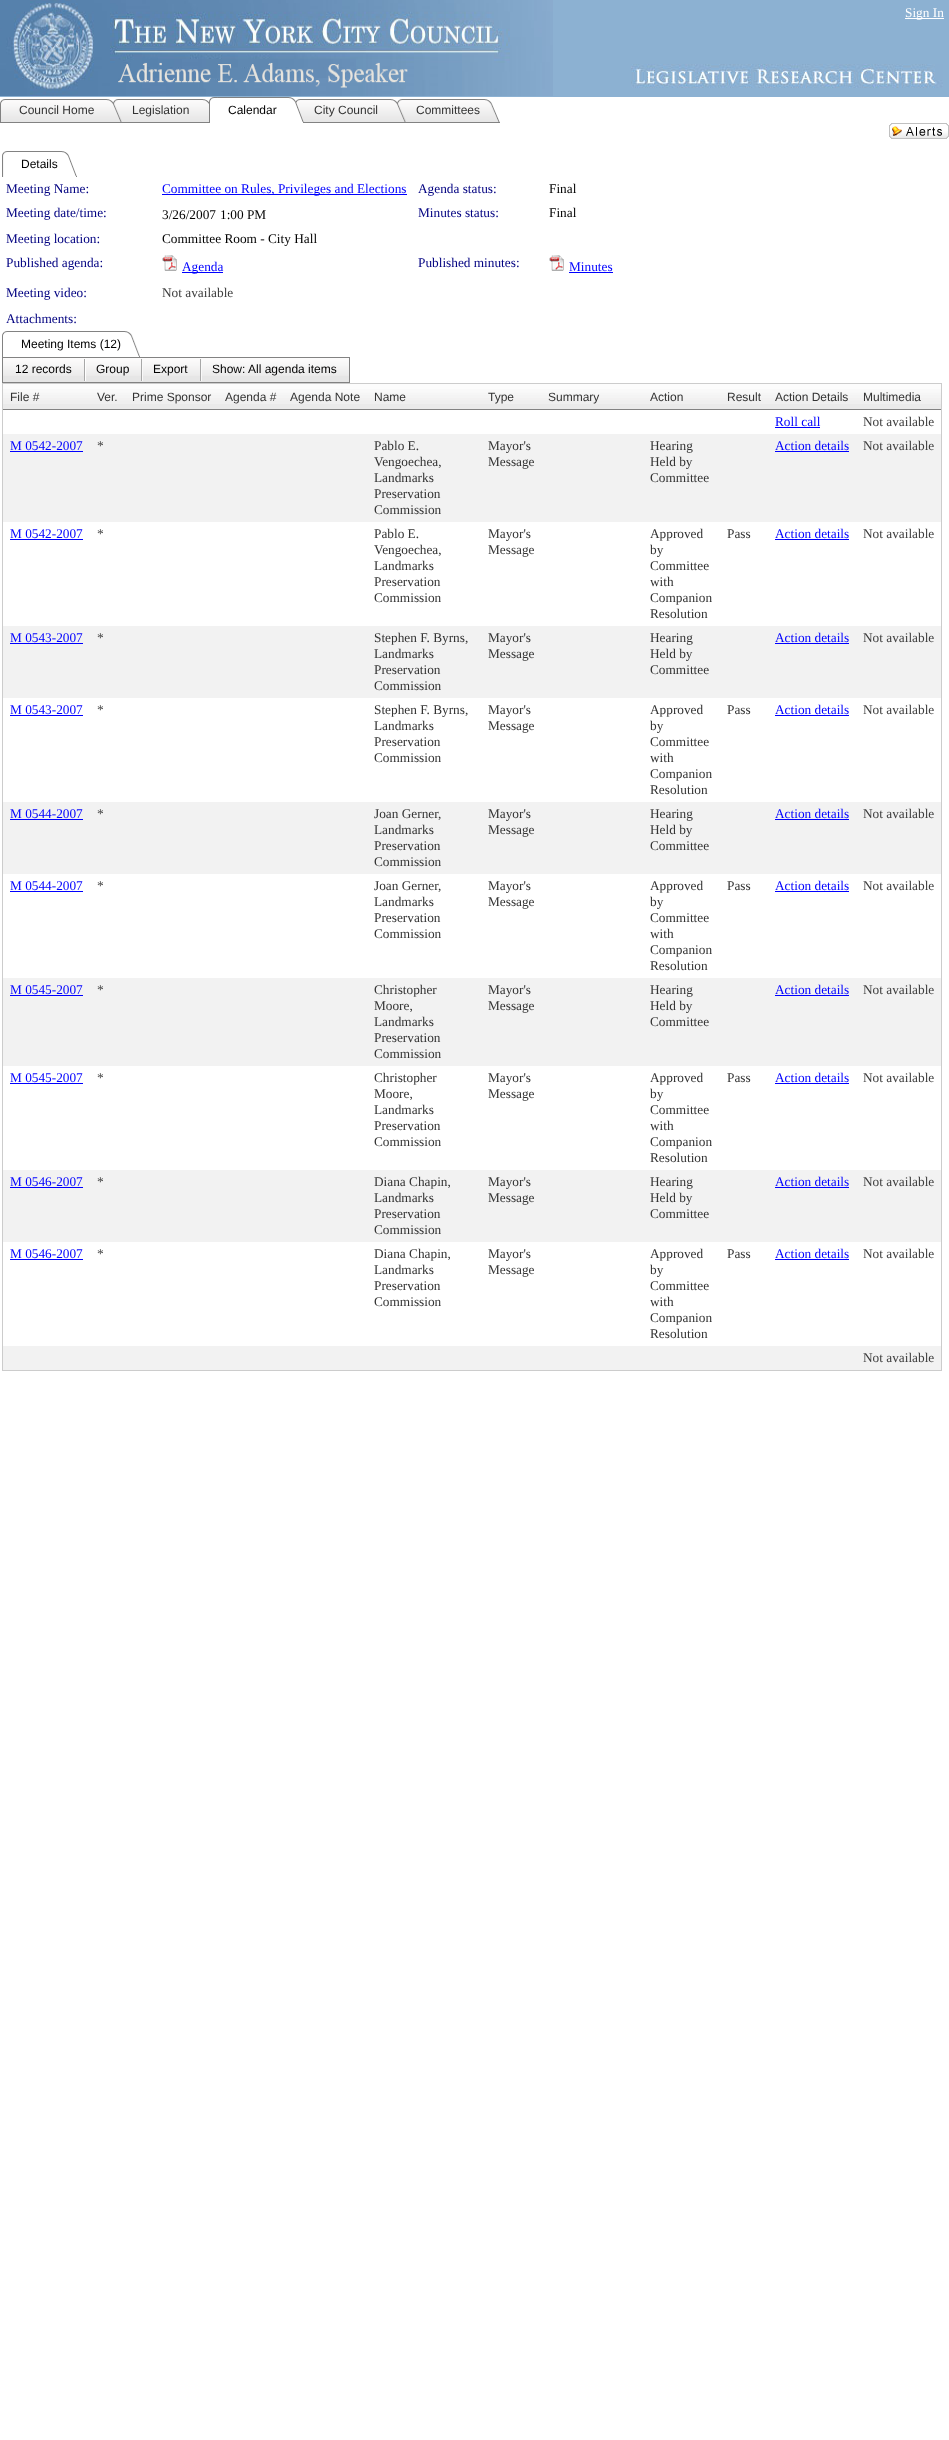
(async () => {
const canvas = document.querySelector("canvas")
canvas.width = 949
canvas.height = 2440
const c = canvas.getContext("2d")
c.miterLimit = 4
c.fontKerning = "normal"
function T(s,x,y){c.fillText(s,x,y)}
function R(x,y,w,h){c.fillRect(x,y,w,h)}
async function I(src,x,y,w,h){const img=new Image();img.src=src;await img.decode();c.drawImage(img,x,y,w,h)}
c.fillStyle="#fff"
R(0,0,949,2440)
c.fillStyle="#8cb1d2"
R(0,0,949,97)
await I("1.png",0,0,553,96)
await I("2.png",631,64,312,24)
c.fillStyle="#fff"
R(905,18,39,1)
c.font="13.3px Liberation Serif"
T("Sign In",905,17)
await I("3.png",0,99,9,24)
await I("4.png",9,99,104,24)
c.font="12px Liberation Sans"
c.fillStyle="#333"
T("Council Home",19,114)
await I("5.png",113,99,9,24)
await I("6.png",122,99,87,24)
T("Legislation",132,114)
await I("7.png",209,97,9,26)
await I("8.png",218,97,77,5)
c.fillStyle="#000"
T("Calendar",228,114)
await I("9.png",295,99,9,24)
await I("10.png",304,99,93,24)
c.fillStyle="#333"
T("City Council",314,114)
await I("11.png",397,99,9,24)
await I("12.png",406,99,94,24)
T("Committees",416,114)
await I("13.png",889,123,60,16)
await I("14.png",2,151,9,26)
await I("15.png",11,151,66,26)
c.fillStyle="#000"
T("Details",21,168)
c.font="13.3px Liberation Serif"
c.fillStyle="#000080"
T("Meeting Name:",6,193)
c.fillStyle="#00f"
R(162,194,245,1)
T("Committee on Rules, Privileges and Elections",162,193)
c.fillStyle="#000080"
T("Agenda status:",418,193)
c.fillStyle="#000"
T("Final",549,193)
c.fillStyle="#000080"
T("Meeting date/time:",6,217)
c.fillStyle="#000"
T("3/26/2007",162,219)
T("1:00 PM",220,219)
c.fillStyle="#000080"
T("Minutes status:",418,217)
c.fillStyle="#000"
T("Final",549,217)
c.fillStyle="#000080"
T("Meeting location:",6,243)
c.fillStyle="#000"
T("Committee Room - City Hall",162,243)
c.fillStyle="#000080"
T("Published agenda:",6,267)
await I("16.png",162,255,15,16)
c.fillStyle="#00f"
R(182,272,41,1)
T("Agenda",182,271)
c.fillStyle="#000080"
T("Published minutes:",418,267)
await I("16.png",549,255,15,16)
c.fillStyle="#00f"
T("Minutes",569,271)
R(569,272,44,1)
c.fillStyle="#000080"
T("Meeting video:",6,297)
c.fillStyle="#3d3d3d"
T("Not available",162,297)
c.fillStyle="#000080"
T("Attachments:",6,323)
await I("17.png",2,331,9,26)
await I("18.png",11,331,129,26)
c.font="12px Liberation Sans"
c.fillStyle="#000"
T("Meeting Items (12)",21,348)
c.fillStyle="#e6e6e6"
R(3,376,346,6)
await I("19.png",3,358,346,18)
c.strokeStyle="#828282"
c.strokeRect(2.5,357.5,347,25)
c.fillStyle="#000"
T("12 records",15,373)
await I("20.png",84,359,2,22)
T("Group",96,373)
await I("21.png",141,359,2,22)
T("Export",153,373)
await I("21.png",200,359,2,22)
T("Show: All agenda items",212,373)
c.strokeStyle="#ccc"
c.strokeRect(2.5,383.5,939,987)
c.fillStyle="#eaeaea"
R(3,404,938,5)
await I("22.png",3,384,87,20)
c.fillStyle="#828282"
R(3,409,938,1)
c.fillStyle="#333"
T("File #",10,401)
await I("23.png",90,384,35,20)
T("Ver.",97,401)
await I("24.png",125,384,93,20)
T("Prime Sponsor",132,401)
await I("25.png",218,384,65,20)
T("Agenda #",225,401)
await I("26.png",283,384,84,20)
T("Agenda Note",290,401)
await I("27.png",367,384,114,20)
T("Name",374,401)
await I("28.png",481,384,60,20)
T("Type",488,401)
await I("29.png",541,384,102,20)
T("Summary",548,401)
await I("30.png",643,384,77,20)
T("Action",650,401)
await I("31.png",720,384,48,20)
T("Result",727,401)
await I("32.png",768,384,88,20)
T("Action Details",775,401)
await I("33.png",856,384,85,20)
T("Multimedia",863,401)
c.font="13.3px Liberation Serif"
c.fillStyle="#00f"
T("Roll call",775,426)
R(775,427,45,1)
c.fillStyle="#3d3d3d"
T("Not available",863,426)
c.fillStyle="#f2f2f2"
R(3,434,938,88)
c.fillStyle="#00f"
T("M 0542-2007",10,450)
R(10,451,73,1)
c.fillStyle="#333"
T("*",97,450)
T("Pablo E.",374,450)
T("Vengoechea,",374,466)
T("Landmarks",374,482)
T("Preservation",374,498)
T("Commission",374,514)
T("Mayor's",488,450)
T("Message",488,466)
T("Hearing",650,450)
T("Held by",650,466)
T("Committee",650,482)
c.fillStyle="#00f"
T("Action details",775,450)
R(775,451,74,1)
c.fillStyle="#3d3d3d"
T("Not available",863,450)
c.fillStyle="#00f"
T("M 0542-2007",10,538)
R(10,539,73,1)
c.fillStyle="#333"
T("*",97,538)
T("Pablo E.",374,538)
T("Vengoechea,",374,554)
T("Landmarks",374,570)
T("Preservation",374,586)
T("Commission",374,602)
T("Mayor's",488,538)
T("Message",488,554)
T("Approved",650,538)
T("by",650,554)
T("Committee",650,570)
T("with",650,586)
T("Companion",650,602)
T("Resolution",650,618)
T("Pass",727,538)
c.fillStyle="#00f"
T("Action details",775,538)
R(775,539,74,1)
c.fillStyle="#3d3d3d"
T("Not available",863,538)
c.fillStyle="#f2f2f2"
R(3,626,938,72)
c.fillStyle="#00f"
T("M 0543-2007",10,642)
R(10,643,73,1)
c.fillStyle="#333"
T("*",97,642)
T("Stephen F. Byrns,",374,642)
T("Landmarks",374,658)
T("Preservation",374,674)
T("Commission",374,690)
T("Mayor's",488,642)
T("Message",488,658)
T("Hearing",650,642)
T("Held by",650,658)
T("Committee",650,674)
c.fillStyle="#00f"
T("Action details",775,642)
R(775,643,74,1)
c.fillStyle="#3d3d3d"
T("Not available",863,642)
c.fillStyle="#00f"
T("M 0543-2007",10,714)
R(10,715,73,1)
c.fillStyle="#333"
T("*",97,714)
T("Stephen F. Byrns,",374,714)
T("Landmarks",374,730)
T("Preservation",374,746)
T("Commission",374,762)
T("Mayor's",488,714)
T("Message",488,730)
T("Approved",650,714)
T("by",650,730)
T("Committee",650,746)
T("with",650,762)
T("Companion",650,778)
T("Resolution",650,794)
T("Pass",727,714)
c.fillStyle="#00f"
T("Action details",775,714)
R(775,715,74,1)
c.fillStyle="#3d3d3d"
T("Not available",863,714)
c.fillStyle="#f2f2f2"
R(3,802,938,72)
c.fillStyle="#00f"
T("M 0544-2007",10,818)
R(10,819,73,1)
c.fillStyle="#333"
T("*",97,818)
T("Joan Gerner,",374,818)
T("Landmarks",374,834)
T("Preservation",374,850)
T("Commission",374,866)
T("Mayor's",488,818)
T("Message",488,834)
T("Hearing",650,818)
T("Held by",650,834)
T("Committee",650,850)
c.fillStyle="#00f"
T("Action details",775,818)
R(775,819,74,1)
c.fillStyle="#3d3d3d"
T("Not available",863,818)
c.fillStyle="#00f"
T("M 0544-2007",10,890)
R(10,891,73,1)
c.fillStyle="#333"
T("*",97,890)
T("Joan Gerner,",374,890)
T("Landmarks",374,906)
T("Preservation",374,922)
T("Commission",374,938)
T("Mayor's",488,890)
T("Message",488,906)
T("Approved",650,890)
T("by",650,906)
T("Committee",650,922)
T("with",650,938)
T("Companion",650,954)
T("Resolution",650,970)
T("Pass",727,890)
c.fillStyle="#00f"
T("Action details",775,890)
R(775,891,74,1)
c.fillStyle="#3d3d3d"
T("Not available",863,890)
c.fillStyle="#f2f2f2"
R(3,978,938,88)
c.fillStyle="#00f"
T("M 0545-2007",10,994)
R(10,995,73,1)
c.fillStyle="#333"
T("*",97,994)
T("Christopher",374,994)
T("Moore,",374,1010)
T("Landmarks",374,1026)
T("Preservation",374,1042)
T("Commission",374,1058)
T("Mayor's",488,994)
T("Message",488,1010)
T("Hearing",650,994)
T("Held by",650,1010)
T("Committee",650,1026)
c.fillStyle="#00f"
T("Action details",775,994)
R(775,995,74,1)
c.fillStyle="#3d3d3d"
T("Not available",863,994)
c.fillStyle="#00f"
T("M 0545-2007",10,1082)
R(10,1083,73,1)
c.fillStyle="#333"
T("*",97,1082)
T("Christopher",374,1082)
T("Moore,",374,1098)
T("Landmarks",374,1114)
T("Preservation",374,1130)
T("Commission",374,1146)
T("Mayor's",488,1082)
T("Message",488,1098)
T("Approved",650,1082)
T("by",650,1098)
T("Committee",650,1114)
T("with",650,1130)
T("Companion",650,1146)
T("Resolution",650,1162)
T("Pass",727,1082)
c.fillStyle="#00f"
T("Action details",775,1082)
R(775,1083,74,1)
c.fillStyle="#3d3d3d"
T("Not available",863,1082)
c.fillStyle="#f2f2f2"
R(3,1170,938,72)
c.fillStyle="#00f"
T("M 0546-2007",10,1186)
R(10,1187,73,1)
c.fillStyle="#333"
T("*",97,1186)
T("Diana Chapin,",374,1186)
T("Landmarks",374,1202)
T("Preservation",374,1218)
T("Commission",374,1234)
T("Mayor's",488,1186)
T("Message",488,1202)
T("Hearing",650,1186)
T("Held by",650,1202)
T("Committee",650,1218)
c.fillStyle="#00f"
T("Action details",775,1186)
R(775,1187,74,1)
c.fillStyle="#3d3d3d"
T("Not available",863,1186)
c.fillStyle="#00f"
T("M 0546-2007",10,1258)
R(10,1259,73,1)
c.fillStyle="#333"
T("*",97,1258)
T("Diana Chapin,",374,1258)
T("Landmarks",374,1274)
T("Preservation",374,1290)
T("Commission",374,1306)
T("Mayor's",488,1258)
T("Message",488,1274)
T("Approved",650,1258)
T("by",650,1274)
T("Committee",650,1290)
T("with",650,1306)
T("Companion",650,1322)
T("Resolution",650,1338)
T("Pass",727,1258)
c.fillStyle="#00f"
T("Action details",775,1258)
R(775,1259,74,1)
c.fillStyle="#3d3d3d"
T("Not available",863,1258)
c.fillStyle="#f2f2f2"
R(3,1346,938,24)
c.fillStyle="#3d3d3d"
T("Not available",863,1362)
})()
